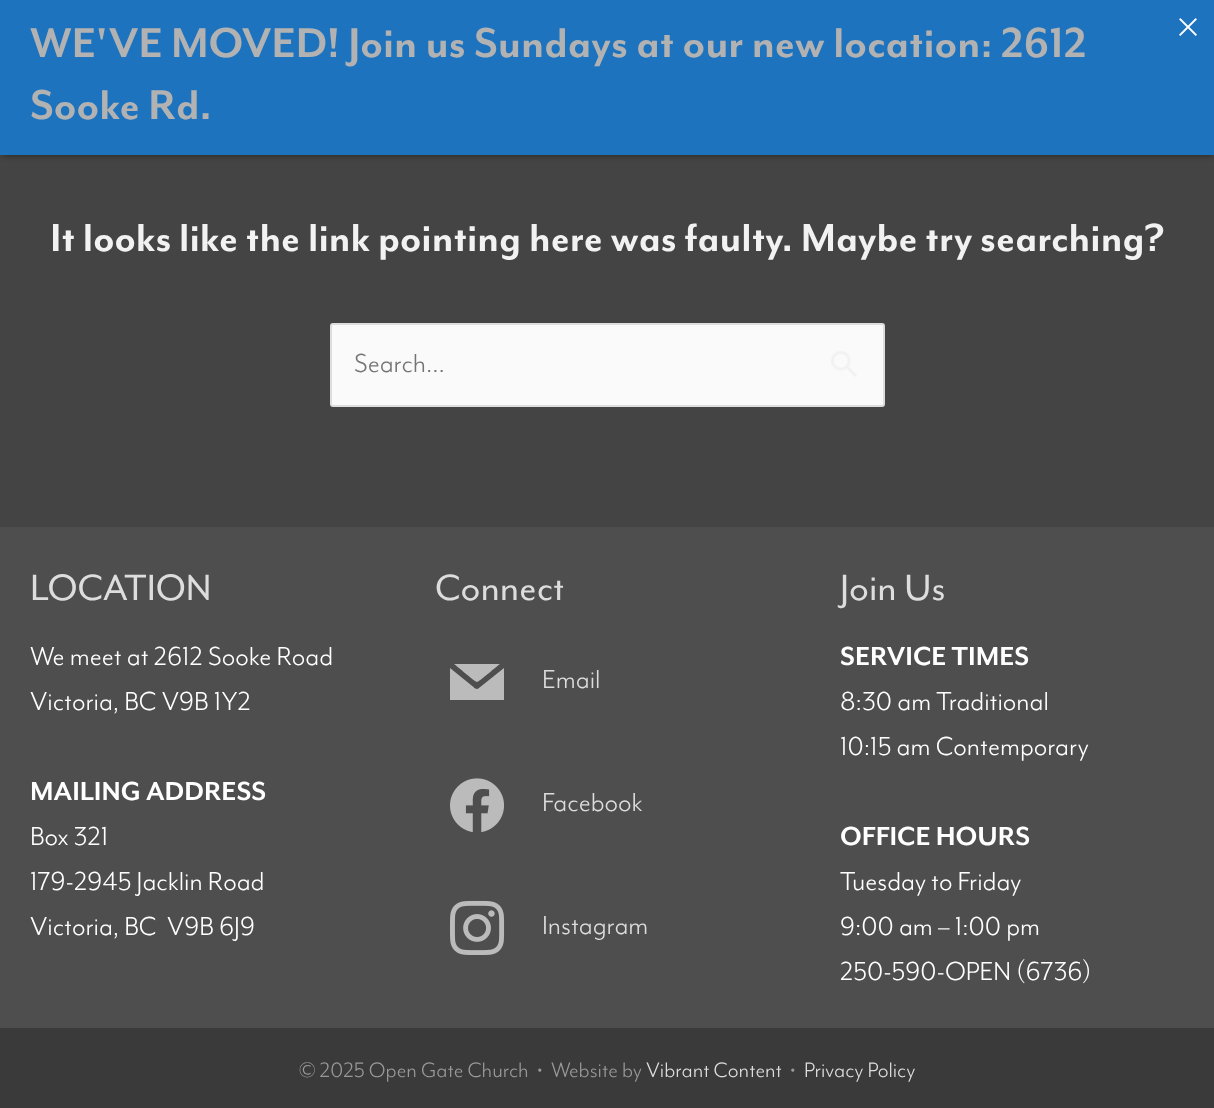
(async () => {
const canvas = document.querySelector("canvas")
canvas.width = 1214
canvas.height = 1108
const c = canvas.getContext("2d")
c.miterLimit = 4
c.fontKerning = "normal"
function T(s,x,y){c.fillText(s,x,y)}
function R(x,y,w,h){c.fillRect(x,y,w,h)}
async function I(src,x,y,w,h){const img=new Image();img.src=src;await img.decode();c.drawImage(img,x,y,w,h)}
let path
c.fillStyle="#444"
R(0,0,1214,1108)
c.fillStyle="#00000080"
c.filter="blur(3px)"
c.beginPath()
c.rect(3,6,1209,149)
c.fill()
c.filter="none"
c.fillStyle="#1e73be"
R(0,0,1214,155)
c.font="bold 48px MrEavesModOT"
c.fillStyle="#b2b2b2"
T("WE'VE MOVED! Join us Sundays at our new location: 2612",30,57)
T("Sooke Rd.",30,119)
await I("1.png",1179,18,18,18)
c.font="bold 45px MrEavesModOT"
c.fillStyle="#f2f2f2"
T("It looks like the link pointing here was faulty. Maybe try searching?",50,251)
c.fillStyle="#fafafa"
c.beginPath()
c.roundRect(331,324,553,82,2)
c.fill()
c.strokeStyle="#ddd"
c.lineWidth=2
c.stroke()
c.font="30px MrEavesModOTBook"
c.fillStyle="#757575"
T("Search...",354,372)
await I("2.png",831,351,26,26)
c.fillStyle="#4e4e4e"
R(0,527,1214,501)
c.font="42px MrEavesModOT"
c.fillStyle="#ddd"
T("LOCATION",30,600)
c.font="30px MrEavesModOTBook"
c.fillStyle="#fff"
T("We meet at 2612 Sooke Road",30,665)
T("Victoria, BC V9B 1Y2",30,710)
c.font="bold 30px MrEavesModOT"
T("MAILING ADDRESS",30,800)
c.font="30px MrEavesModOTBook"
T("Box 321",30,845)
T("179-2945 Jacklin Road",30,890)
T("Victoria, BC  V9B 6J9",30,935)
c.font="42px MrEavesModOT"
c.fillStyle="#ddd"
T("Connect",435,600)
c.fillStyle="#bbb"
path = new Path2D("M479 688c-3 3-6-2-8-3l-21-17v32h54v-32zm-2-6c2 0 20-16 23-18h-46c3 2 21 18 23 18z")
c.fill(path)
c.font="30px MrEavesModOTBook"
c.fillStyle="#ddd"
T("Email",542,688)
await I("3.png",450,778,55,55)
T("Facebook",542,811)
await I("4.png",450,900,55,55)
T("Instagram",542,934)
c.font="42px MrEavesModOT"
T("Join Us",840,600)
c.font="bold 30px MrEavesModOT"
c.fillStyle="#fff"
T("SERVICE TIMES",840,665)
c.font="30px MrEavesModOTBook"
T("8:30 am Traditional",840,710)
T("10:15 am Contemporary",840,755)
c.font="bold 30px MrEavesModOT"
T("OFFICE HOURS",840,845)
c.font="30px MrEavesModOTBook"
T("Tuesday to Friday",840,890)
T("9:00 am – 1:00 pm",840,935)
T("250-590-OPEN (6736)",840,980)
c.fillStyle="#3a3a3a"
R(0,1028,1214,80)
c.font="24px MrEavesModOTBook"
c.fillStyle="#999"
T("© 2025 Open Gate Church",299,1077)
T("•  Website by",537,1077)
c.fillStyle="#ddd"
T("Vibrant Content",646,1077)
c.fillStyle="#999"
T("•",790,1077)
c.fillStyle="#ddd"
T("Privacy Policy",804,1077)
})()
